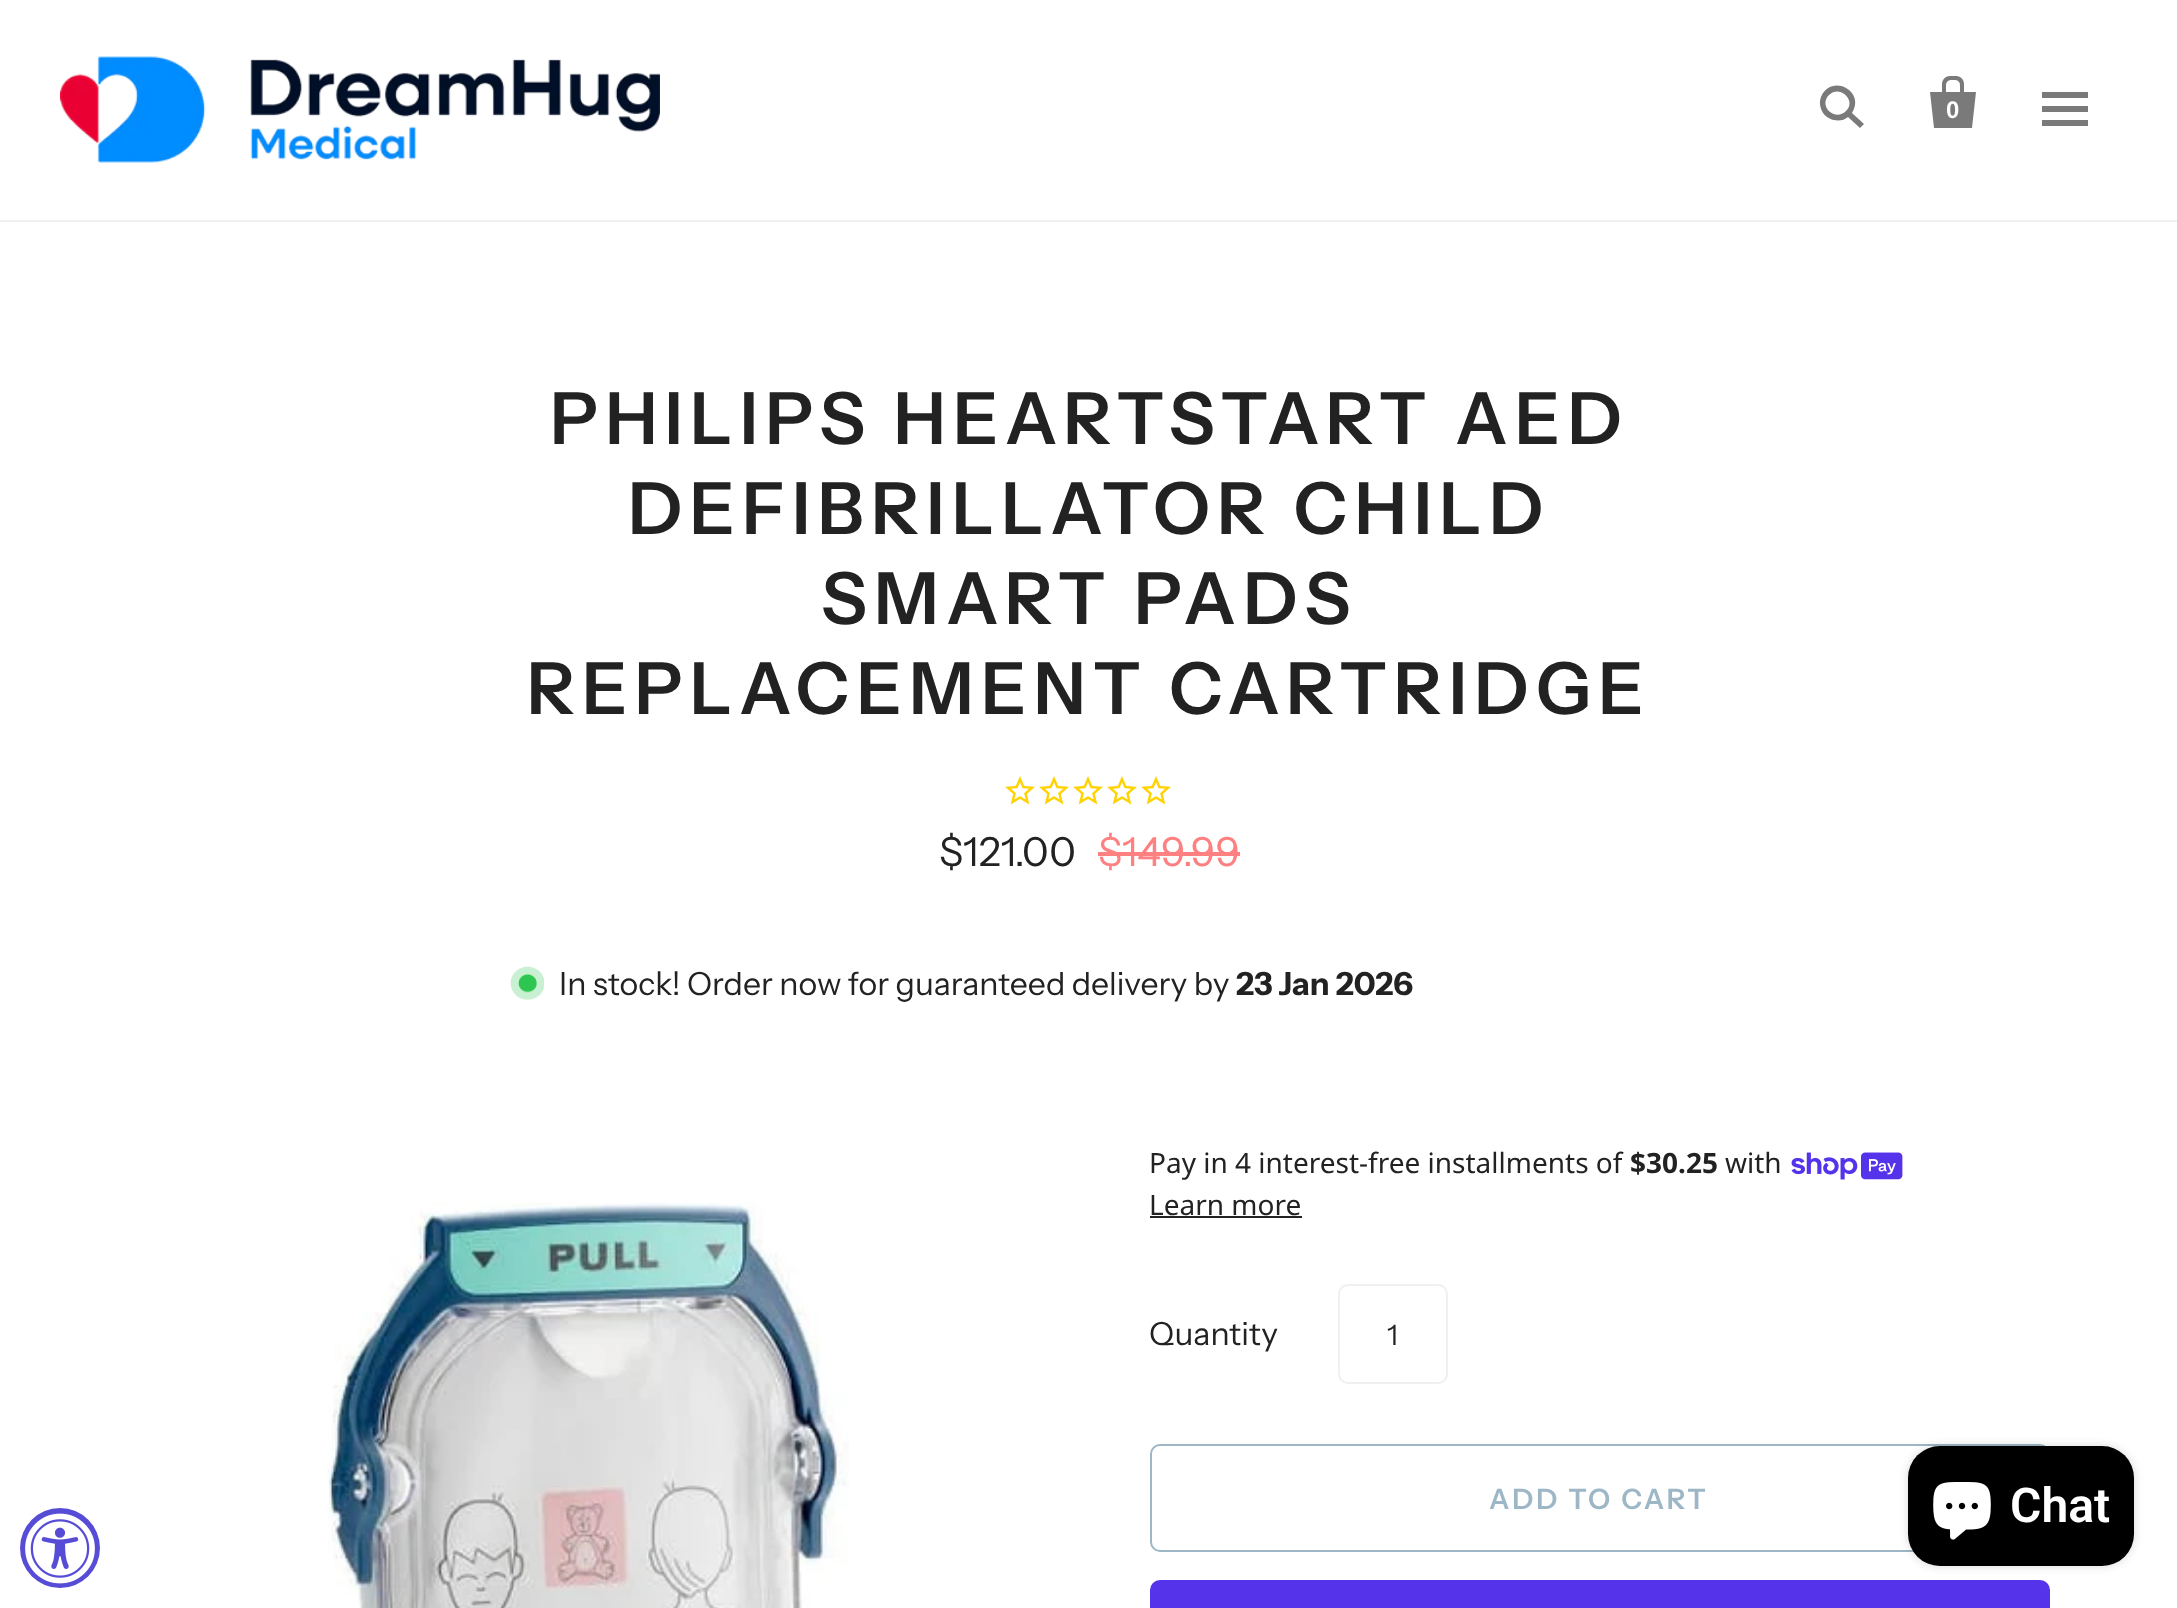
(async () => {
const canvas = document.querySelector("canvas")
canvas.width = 2177
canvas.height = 1608
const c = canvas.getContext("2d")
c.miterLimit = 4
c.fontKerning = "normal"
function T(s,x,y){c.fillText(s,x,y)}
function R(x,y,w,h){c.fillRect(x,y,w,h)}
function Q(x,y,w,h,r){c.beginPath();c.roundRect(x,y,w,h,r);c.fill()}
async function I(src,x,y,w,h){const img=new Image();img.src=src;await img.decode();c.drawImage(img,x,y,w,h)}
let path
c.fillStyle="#fff"
R(0,0,2177,1608)
c.fillStyle="#f0eff2"
R(0,220,2177,2)
await I("1.png",60,56,600,107)
c.fillStyle="#7a7a7a"
path = new Path2D("M1852 113c14-22-21-40-31-16c-2 5-1 11 2 16c6 8 18 10 25 4l12 11l4-4zm-6-2c-11 11-28-5-17-16c11-11 28 6 17 16z")
c.fill(path)
await I("2.png",1930,76,46,52)
c.font="bold 24px Liberation Sans"
c.fillStyle="#fff"
T("0",1946,118)
c.fillStyle="#7a7a7a"
R(2042,106,46,6)
R(2042,92,46,6)
R(2042,120,46,6)
c.fillStyle="#574cd5"
c.beginPath()
c.arc(60,1548,40,0,7)
c.fill()
await I("3.png",25,1513,70,71)
c.letterSpacing="7.2px"
c.font="600 72px Instrument Sans"
c.fillStyle="#222"
T("PHILIPS HEARTSTART AED",550,444)
T("DEFIBRILLATOR CHILD",628,534)
T("SMART PADS",821,624)
T("REPLACEMENT CARTRIDGE",527,714)
await I("4.png",1005,776,30,29)
await I("4.png",1039,776,30,29)
await I("4.png",1073,776,30,29)
await I("4.png",1107,776,30,29)
await I("4.png",1141,776,30,29)
c.letterSpacing="0px"
c.font="40px Instrument Sans"
T("$121.00",939,866)
c.fillStyle="#ff8080"
T("$149.99",1098,866)
R(1098,852,142,4)
await I("5.png",510,966,34,34)
c.font="32px Instrument Sans"
c.fillStyle="#222"
T("In stock! Order now for guaranteed delivery by",559,995)
c.font="bold 32px Instrument Sans"
T("23 Jan 2026",1236,995)
await I("6.png",327,1202,522,406)
c.font="28px Noto Sans"
T("Pay in 4 interest-free installments of",1149,1173)
c.font="bold 28px Noto Sans"
T("$30.25",1630,1173)
c.font="28px Noto Sans"
T("with",1725,1173)
await I("7.png",1791,1152,112,28)
T("Learn more",1149,1215)
R(1150,1216,152,2)
c.font="32px Instrument Sans"
T("Quantity",1149,1345)
c.beginPath()
c.roundRect(1339,1285,108,98,9)
c.strokeStyle="#f0eff2"
c.lineWidth=2
c.stroke()
c.font="28px Instrument Sans"
T("1",1387,1345)
c.beginPath()
c.roundRect(1151,1445,898,106,9)
c.strokeStyle="#9db7c6"
c.stroke()
c.letterSpacing="2.75px"
c.font="600 28px Instrument Sans"
c.fillStyle="#9db7c6"
T("ADD TO CART",1489,1509)
c.fillStyle="#5433eb"
Q(1150,1580,900,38,10)
c.fillStyle="#00000026"
c.filter="blur(5px)"
c.beginPath()
c.roundRect(1908,1446,226,120,32)
c.fill()
c.filter="none"
c.fillStyle="#000"
Q(1908,1446,226,120,32)
await I("8.png",1933,1482,58,58)
c.letterSpacing="0px"
c.font="600 48px Roboto"
c.fillStyle="#fff"
T("Chat",2010,1522)
})()
